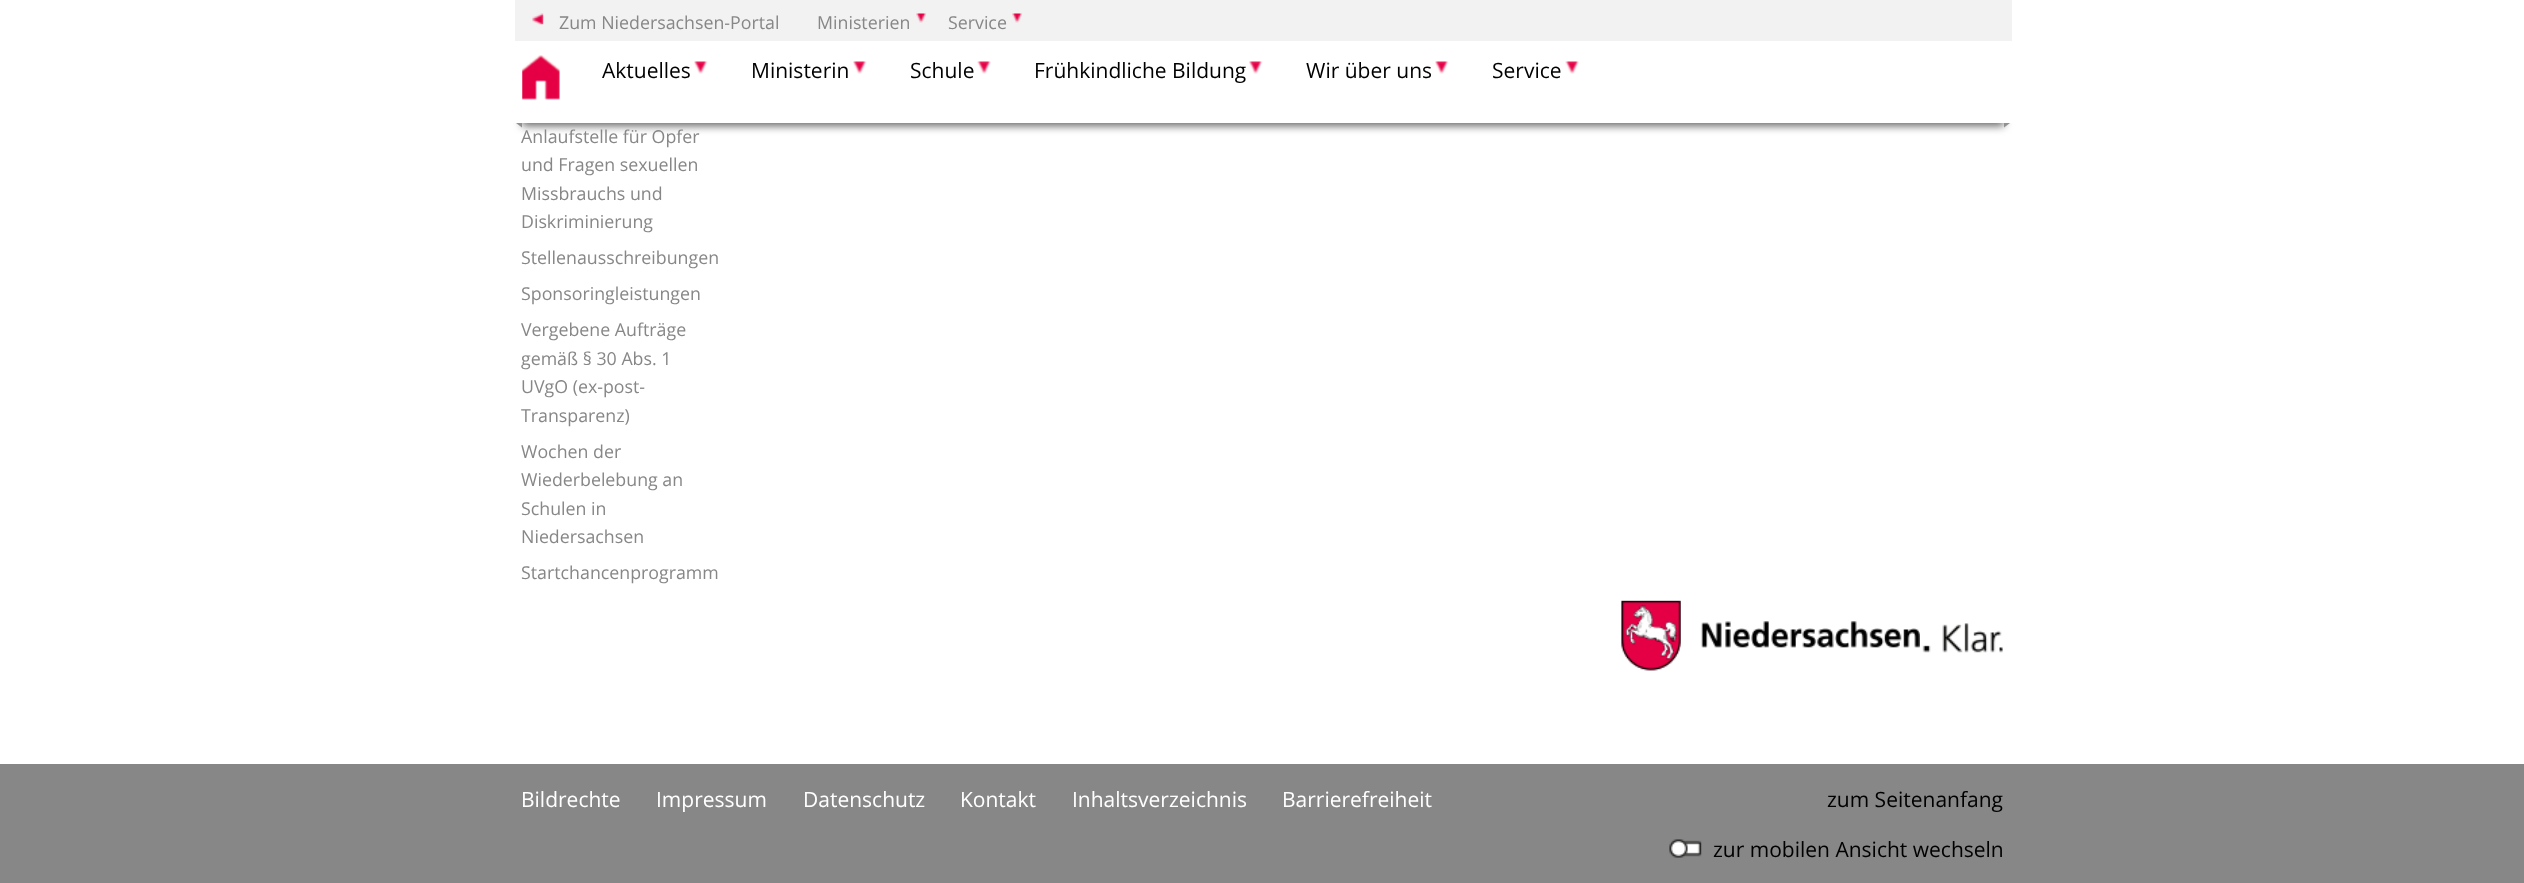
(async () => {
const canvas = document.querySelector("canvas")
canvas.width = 2524
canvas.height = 883
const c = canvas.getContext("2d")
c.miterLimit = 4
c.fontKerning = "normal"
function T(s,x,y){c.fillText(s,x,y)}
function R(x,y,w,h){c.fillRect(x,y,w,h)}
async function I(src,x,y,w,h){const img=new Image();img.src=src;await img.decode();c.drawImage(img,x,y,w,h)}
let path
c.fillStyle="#fff"
R(0,0,2524,883)
c.fillStyle="#666"
c.filter="blur(4.5px)"
c.beginPath()
c.rect(522,44,1482,82)
c.fill()
c.filter="none"
c.fillStyle="#fff"
R(512,36,10,87)
R(2004,36,10,87)
c.fillStyle="#f2f2f2"
R(515,0,1497,41)
await I("1.png",532,13,12,12)
c.font="17.8px Open Sans"
c.fillStyle="#878787"
T("Zum Niedersachsen-Portal",559,29)
T("Ministerien",817,29)
await I("2.png",916,13,10,10)
T("Service",948,29)
await I("2.png",1012,13,10,10)
c.fillStyle="#fff"
R(522,41,1482,82)
await I("3.png",522,55,38,45)
c.font="21px Open Sans"
c.fillStyle="#000"
T("Aktuelles",602,78)
await I("4.png",694,61,14,13)
T("Ministerin",751,78)
await I("4.png",853,61,14,13)
T("Schule",910,78)
await I("5.png",977,61,14,13)
T("Frühkindliche Bildung",1034,78)
await I("4.png",1249,61,14,13)
T("Wir über uns",1306,78)
await I("4.png",1435,61,14,13)
T("Service",1492,78)
await I("5.png",1565,61,14,13)
c.fillStyle="#90908f"
path = new Path2D("M522 123v4.5l-6-4.5z")
c.fill(path)
path = new Path2D("M2004 127.5v-4.5h6z")
c.fill(path)
c.font="17.8px Open Sans"
c.fillStyle="#878787"
T("Anlaufstelle für Opfer",521,143)
T("und Fragen sexuellen",521,171)
T("Missbrauchs und",521,200)
T("Diskriminierung",521,228)
T("Stellenausschreibungen",521,264)
T("Sponsoringleistungen",521,300)
T("Vergebene Aufträge",521,336)
T("gemäß § 30 Abs. 1",521,365)
T("UVgO (ex-post-",521,393)
T("Transparenz)",521,422)
T("Wochen der",521,458)
T("Wiederbelebung an",521,486)
T("Schulen in",521,515)
T("Niedersachsen",521,543)
T("Startchancenprogramm",521,579)
await I("6.png",1621,600,299,71)
await I("7.png",1922,623,81,30)
R(0,764,2524,119)
c.font="21px Open Sans"
c.fillStyle="#fff"
T("Bildrechte",521,807)
T("Impressum",656,807)
T("Datenschutz",803,807)
T("Kontakt",960,807)
T("Inhaltsverzeichnis",1072,807)
T("Barrierefreiheit",1282,807)
c.fillStyle="#000"
T("zum Seitenanfang",1827,807)
await I("8.png",1669,839,33,19)
T("zur mobilen Ansicht wechseln",1713,857)
})()
